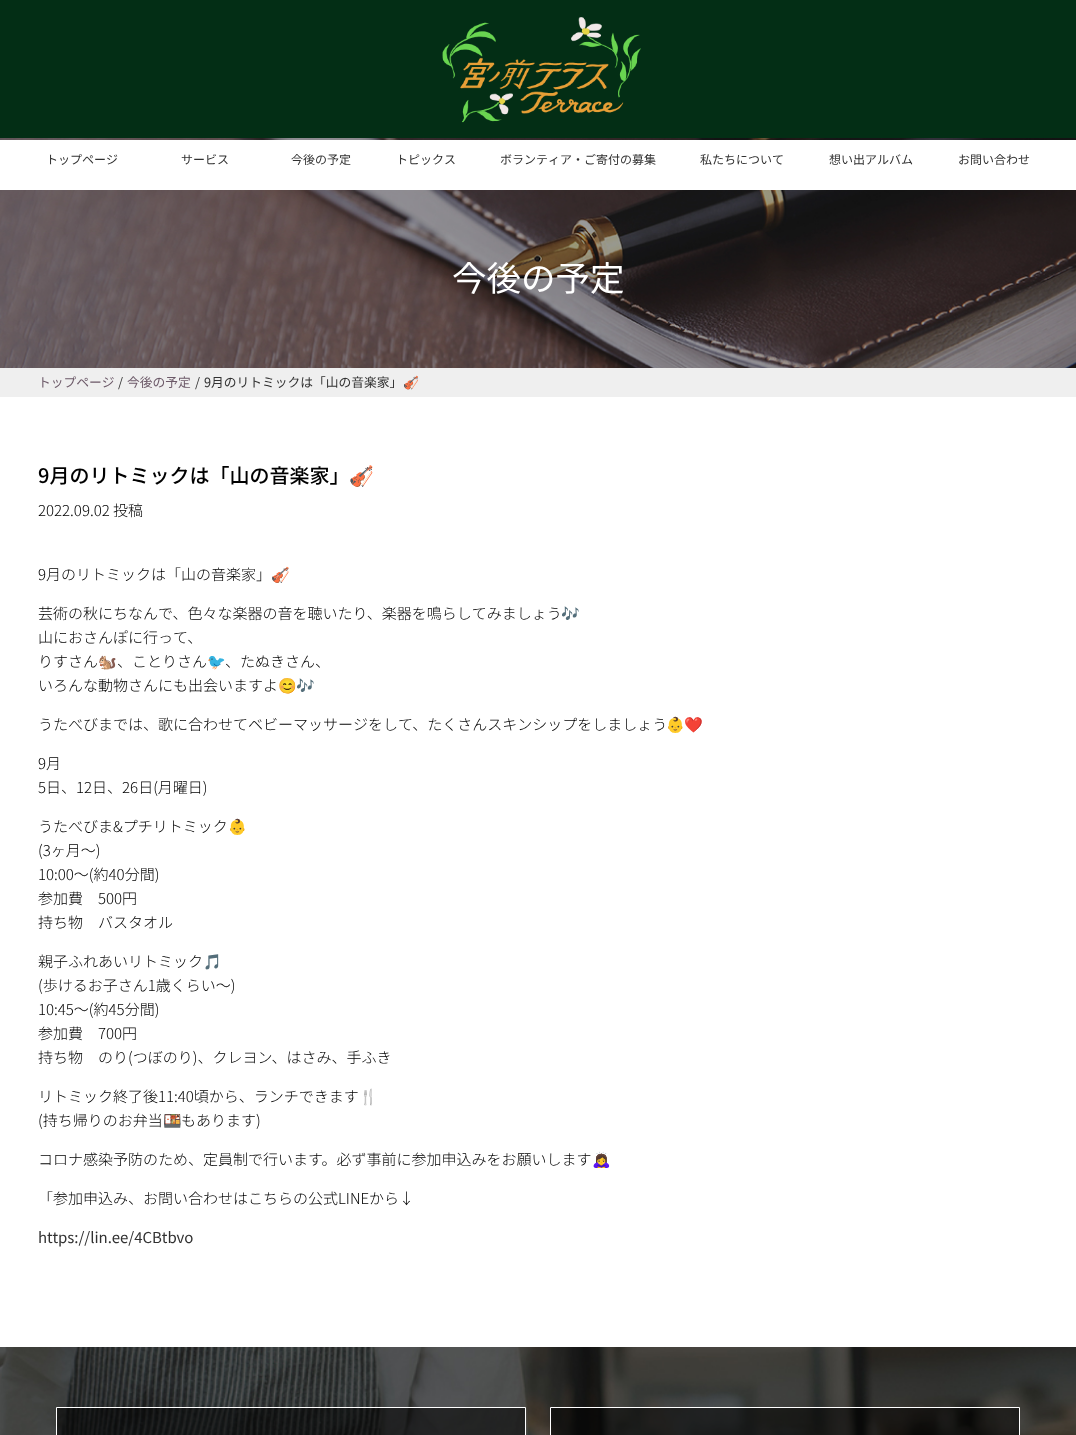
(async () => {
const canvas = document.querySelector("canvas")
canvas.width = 1076
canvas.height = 1435
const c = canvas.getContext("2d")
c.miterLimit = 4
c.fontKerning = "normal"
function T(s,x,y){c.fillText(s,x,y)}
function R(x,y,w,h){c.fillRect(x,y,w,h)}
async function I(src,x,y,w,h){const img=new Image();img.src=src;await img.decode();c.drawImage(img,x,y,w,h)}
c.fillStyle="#fff"
R(0,0,1076,1435)
c.fillStyle="#032e15"
R(0,0,1076,138)
await I("1.png",442,17,199,106)
await I("2.png",0,138,1076,230)
c.fillStyle="#fff"
R(0,140,1076,50)
c.font="12px Noto Sans JP"
c.fillStyle="#313131"
T("トップページ",46,164)
T("サービス",181,164)
T("今後の予定",291,164)
T("トピックス",396,164)
T("ボランティア・ご寄付の募集",500,164)
T("私たちについて",700,164)
T("想い出アルバム",829,164)
T("お問い合わせ",958,164)
c.font="34.5px Noto Sans JP"
c.fillStyle="#fff"
T("今後の予定",452,291)
c.fillStyle="#efefef"
R(0,368,1076,29)
c.font="12.75px Noto Sans JP"
c.fillStyle="#6c5968"
T("トップページ",38,387)
c.fillStyle="#313131"
T("/",118,387)
c.fillStyle="#6c5968"
T("今後の予定",127,387)
c.fillStyle="#313131"
T("/",195,387)
T("9月のリトミックは「山の音楽家」",204,387)
c.font="12.75px Noto Color Emoji"
T("🎻",403,387)
c.font="500 20px Noto Sans JP"
c.fillStyle="#000"
T("9月のリトミックは「山の音楽家」",38,483)
c.font="20px Noto Color Emoji"
T("🎻",349,483)
c.font="300 15px Noto Sans JP"
T("2022.09.02 投稿",38,516)
T("9月のリトミックは「山の音楽家」",38,580)
c.font="15px Noto Color Emoji"
T("🎻",271,580)
c.font="300 15px Noto Sans JP"
T("芸術の秋にちなんで、色々な楽器の音を聴いたり、楽器を鳴らしてみましょう",38,619)
c.font="15px Noto Color Emoji"
T("🎶",561,619)
c.font="300 15px Noto Sans JP"
T("山におさんぽに行って、",38,643)
T("りすさん",38,667)
c.font="15px Noto Color Emoji"
T("🐿️",98,667)
c.font="300 15px Noto Sans JP"
T("、ことりさん",117,667)
c.font="15px Noto Color Emoji"
T("🐦",207,667)
c.font="300 15px Noto Sans JP"
T("、たぬきさん、",225,667)
T("いろんな動物さんにも出会いますよ",38,691)
c.font="15px Noto Color Emoji"
T("😊🎶",278,691)
c.font="300 15px Noto Sans JP"
T("うたべびまでは、歌に合わせてベビーマッサージをして、たくさんスキンシップをしましょう",38,730)
c.font="15px Noto Color Emoji"
T("👶❤️",666,730)
c.font="300 15px Noto Sans JP"
T("9月",38,769)
T("5日、12日、26日(月曜日)",38,793)
T("うたべびま&プチリトミック",38,832)
c.font="15px Noto Color Emoji"
T("👶",228,832)
c.font="300 15px Noto Sans JP"
T("(3ヶ月～)",38,856)
T("10:00～(約40分間)",38,880)
T("参加費　500円",38,904)
T("持ち物　バスタオル",38,928)
T("親子ふれあいリトミック",38,967)
c.font="15px Noto Color Emoji"
T("🎵",203,967)
c.font="300 15px Noto Sans JP"
T("(歩けるお子さん1歳くらい～)",38,991)
T("10:45～(約45分間)",38,1015)
T("参加費　700円",38,1039)
T("持ち物　のり(つぼのり)、クレヨン、はさみ、手ふき",38,1063)
T("リトミック終了後11:40頃から、ランチできます",38,1102)
c.font="15px Noto Color Emoji"
T("🍴",359,1102)
c.font="300 15px Noto Sans JP"
T("(持ち帰りのお弁当",38,1126)
c.font="15px Noto Color Emoji"
T("🍱",163,1126)
c.font="300 15px Noto Sans JP"
T("もあります)",181,1126)
T("コロナ感染予防のため、定員制で行います。必ず事前に参加申込みをお願いします",38,1165)
c.font="15px Noto Color Emoji"
T("🙇‍♀️",592,1165)
c.font="300 15px Noto Sans JP"
T("「参加申込み、お問い合わせはこちらの公式LINEから↓",38,1204)
c.font="15px Noto Sans JP"
c.fillStyle="#313131"
T("https://lin.ee/4CBtbvo",38,1243)
await I("3.png",0,1347,1076,88)
c.fillStyle="#0000008c"
c.beginPath()
c.rect(56.5,1407.5,469,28)
c.fill()
c.strokeStyle="#fff"
c.stroke()
c.beginPath()
c.rect(550.5,1407.5,469,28)
c.fill()
c.stroke()
})()
